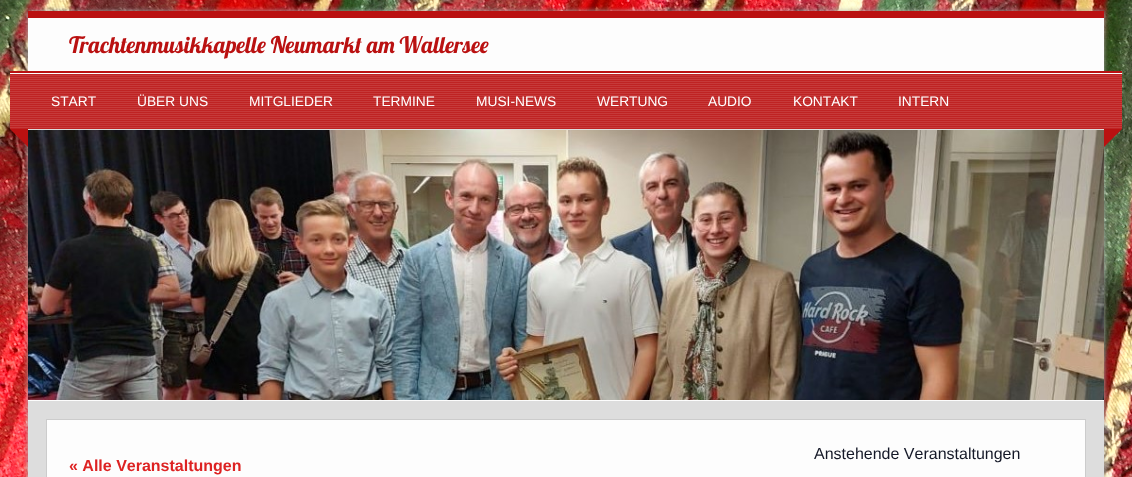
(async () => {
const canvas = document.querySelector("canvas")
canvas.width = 1132
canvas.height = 477
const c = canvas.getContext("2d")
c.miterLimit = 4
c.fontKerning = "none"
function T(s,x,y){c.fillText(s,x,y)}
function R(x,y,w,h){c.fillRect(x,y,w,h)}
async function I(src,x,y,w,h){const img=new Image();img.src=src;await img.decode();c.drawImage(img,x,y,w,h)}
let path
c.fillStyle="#fff"
R(0,0,1132,477)
await I("1.png",0,0,1132,477)
c.fillStyle="#aaa"
c.filter="blur(2.5px)"
c.beginPath()
c.rect(28,11,1076,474)
c.fill()
c.filter="none"
c.fillStyle="#fdfdfd"
R(28,18,1076,459)
c.fillStyle="#ba1111"
R(28,11,1076,7)
c.font="22.75px Lobster"
T("Trachtenmusikkapelle Neumarkt am Wallersee",69,53)
R(10,74,1112,55)
await I("2.png",10,74,1112,55)
R(10,71,1112,2)
c.fillStyle="#fdfdfd"
R(10,73,1112,1)
c.font="13.75px Liberation Sans"
c.fillStyle="#fff"
T("START",51,106)
T("ÜBER UNS",137,106)
T("MITGLIEDER",249,106)
T("TERMINE",373,106)
T("MUSI-NEWS",476,106)
T("WERTUNG",597,106)
T("AUDIO",708,106)
T("KONTAKT",793,106)
T("INTERN",898,106)
c.fillStyle="#ba1111"
path = new Path2D("M10 129h1112l-18 18h-1076z")
c.fill(path)
c.fillStyle="#ddd"
R(28,129,1076,1)
await I("3.png",28,130,1076,270)
c.strokeStyle="#ccc"
c.strokeRect(46.5,419.5,1039,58)
c.strokeStyle="#ddd"
c.lineWidth=18
c.strokeRect(37,410,1058,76)
c.font="16px Liberation Sans"
c.fillStyle="#141827"
T("Anstehende Veranstaltungen",814,459)
c.font="bold 16px Liberation Sans"
c.fillStyle="#d22"
T("« Alle Veranstaltungen",69,471)
})()
